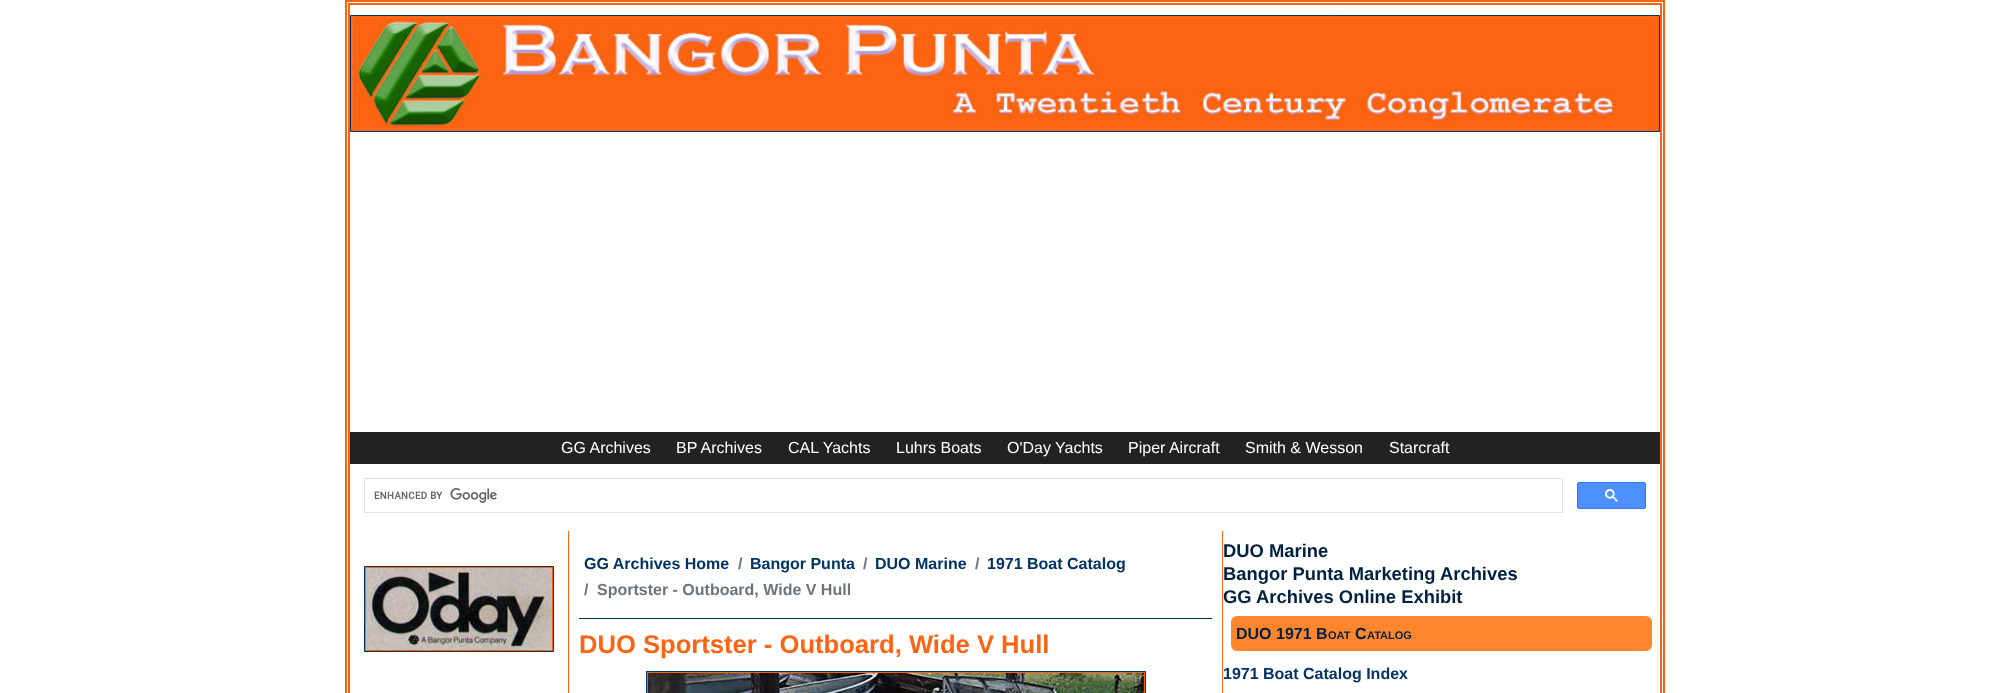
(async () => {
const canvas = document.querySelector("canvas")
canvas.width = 2010
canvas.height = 693
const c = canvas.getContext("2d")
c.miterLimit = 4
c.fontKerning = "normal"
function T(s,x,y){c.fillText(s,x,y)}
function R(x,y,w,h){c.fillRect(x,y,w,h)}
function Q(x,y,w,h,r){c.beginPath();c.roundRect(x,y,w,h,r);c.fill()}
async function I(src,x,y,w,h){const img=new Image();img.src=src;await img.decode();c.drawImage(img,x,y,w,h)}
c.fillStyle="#fff"
R(0,0,2010,693)
c.strokeStyle="#fc6412"
c.lineWidth=2
c.strokeRect(346,1,1318,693)
c.strokeRect(349,4,1312,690)
c.fillStyle="#fc6412"
c.beginPath()
c.rect(350.5,15.5,1309,116)
c.fill()
c.strokeStyle="#036"
c.lineWidth=1
c.stroke()
await I("1.png",352,17,1306,113)
c.fillStyle="#222"
R(350,432,1310,32)
c.font="16px Liberation Sans"
c.fillStyle="#fff"
T("GG Archives",561,453)
T("BP Archives",676,453)
T("CAL Yachts",788,453)
T("Luhrs Boats",896,453)
T("O'Day Yachts",1007,453)
T("Piper Aircraft",1128,453)
T("Smith & Wesson",1245,453)
T("Starcraft",1389,453)
c.strokeStyle="#dfe1e5"
c.strokeRect(364.5,478.5,1198,34)
await I("2.png",374,488,123,15)
c.fillStyle="#4d90fe"
c.beginPath()
c.roundRect(1577.5,482.5,68,26,1.5)
c.fill()
c.strokeStyle="#3079ed"
c.stroke()
await I("3.png",1605,489,13,13)
c.fillStyle="#fc6412"
c.beginPath()
c.rect(364.5,566.5,189,85)
c.fill()
c.strokeStyle="#036"
c.stroke()
await I("4.png",366,568,186,82)
R(1222,531,1,162)
R(568,531,1,162)
c.fillStyle="#036"
R(579,618,633,1)
c.font="bold 16px Liberation Sans"
T("GG Archives Home",584,569)
c.fillStyle="#6c757d"
T("/",738,569)
c.fillStyle="#036"
T("Bangor Punta",750,569)
c.fillStyle="#6c757d"
T("/",863,569)
c.fillStyle="#036"
T("DUO Marine",875,569)
c.fillStyle="#6c757d"
T("/",975,569)
c.fillStyle="#036"
T("1971 Boat Catalog",987,569)
c.fillStyle="#6c757d"
T("/",584,595)
T("Sportster - Outboard, Wide V Hull",597,595)
c.font="bold 25.6px Liberation Sans"
c.fillStyle="#fc6412"
T("DUO Sportster - Outboard, Wide V Hull",579,653)
c.beginPath()
c.rect(646.5,671.5,499,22)
c.fill()
c.stroke()
await I("5.png",648,673,496,20)
c.font="bold 18.4px Liberation Sans"
c.fillStyle="#002142"
T("DUO Marine",1223,557)
T("Bangor Punta Marketing Archives",1223,580)
T("GG Archives Online Exhibit",1223,603)
c.fillStyle="#ff862d"
Q(1231,616,421,35,6)
c.font="bold 16px Liberation Sans"
c.fillStyle="#002142"
T("DUO 1971 B",1236,639)
c.font="bold 11px Liberation Sans"
T("OAT",1328,639)
c.font="bold 16px Liberation Sans"
T("C",1355,639)
c.font="bold 11px Liberation Sans"
T("ATALOG",1367,639)
c.font="bold 16px Liberation Sans"
c.fillStyle="#036"
T("1971 Boat Catalog Index",1223,679)
})()
